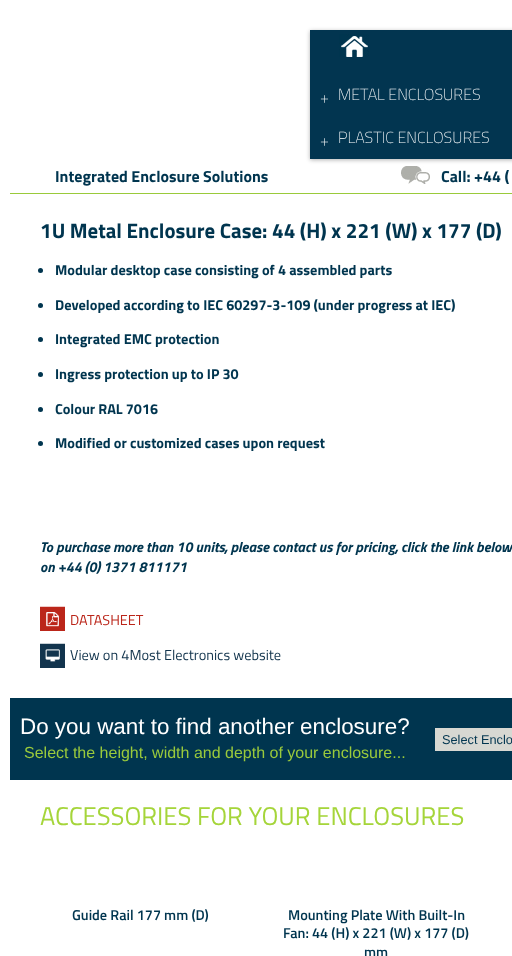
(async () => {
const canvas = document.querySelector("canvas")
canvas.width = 512
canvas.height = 956
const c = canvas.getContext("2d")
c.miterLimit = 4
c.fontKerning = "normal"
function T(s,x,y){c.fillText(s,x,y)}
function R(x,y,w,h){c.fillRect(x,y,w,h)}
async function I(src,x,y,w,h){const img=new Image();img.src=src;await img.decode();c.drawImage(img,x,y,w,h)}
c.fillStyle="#fff"
R(0,0,512,956)
c.fillStyle="#0000004d"
c.filter="blur(2px)"
c.beginPath()
c.rect(310,31,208,129)
c.fill()
c.filter="none"
c.fillStyle="#023550"
R(310,30,202,129)
await I("1.png",339,34,30,23)
c.font="300 16px Titillium Web"
c.fillStyle="#fff"
T("+",320,103)
T("METAL ENCLOSURES",338,100)
T("+",320,146)
T("PLASTIC ENCLOSURES",338,143)
c.font="bold 16px Titillium Web"
c.fillStyle="#00354f"
T("Integrated Enclosure Solutions",55,182)
await I("2.png",401,166,29,18)
T("Call: +44 (",441,182)
c.fillStyle="#9aca3a"
R(10,193,502,1)
c.font="bold 20.8px Titillium Web"
c.fillStyle="#00354f"
T("1U Metal Enclosure Case: 44 (H) x 221 (W) x 177 (D)",40,238)
c.beginPath()
c.arc(40.5,270.5,2.5,0,7)
c.fill()
c.font="bold 14.4px Titillium Web"
T("Modular desktop case consisting of 4 assembled parts",55,275)
c.beginPath()
c.arc(40.5,305.5,2.5,0,7)
c.fill()
T("Developed according to IEC 60297-3-109 (under progress at IEC)",55,310)
c.beginPath()
c.arc(40.5,339.5,2.5,0,7)
c.fill()
T("Integrated EMC protection",55,344)
c.beginPath()
c.arc(40.5,374.5,2.5,0,7)
c.fill()
T("Ingress protection up to IP 30",55,379)
c.beginPath()
c.arc(40.5,409.5,2.5,0,7)
c.fill()
T("Colour RAL 7016",55,414)
c.beginPath()
c.arc(40.5,443.5,2.5,0,7)
c.fill()
T("Modified or customized cases upon request",55,448)
c.font="italic bold 14.4px Titillium Web"
T("To purchase more than 10 units, please contact us for pricing, click the link below",40,552)
T("on +44 (0) 1371 811171",40,572)
await I("3.png",40,606,25,25)
c.font="14.4px Titillium Web"
c.fillStyle="#bb261a"
T("DATASHEET",70,625)
await I("4.png",40,643,25,25)
c.fillStyle="#12344d"
T("View on 4Most Electronics website",70,660)
c.fillStyle="#00354f"
R(10,698,502,82)
c.font="22.4px Liberation Sans"
c.fillStyle="#fff"
T("Do you want to find another enclosure?",20,734)
c.font="16px Liberation Sans"
c.fillStyle="#9aca3c"
T("Select the height, width and depth of your enclosure...",24,758)
c.fillStyle="#d7d8d2"
R(435,728,77,23)
c.font="12.75px Liberation Sans"
c.fillStyle="#00354f"
T("Select Enclo",442,744)
c.font="25.6px Titillium Web"
c.fillStyle="#a5d53a"
T("ACCESSORIES FOR YOUR ENCLOSURES",40,825)
c.font="600 14.4px Titillium Web"
c.fillStyle="#00354f"
T("Guide Rail 177 mm (D)",72,920)
T("Mounting Plate With Built-In",288,920)
T("Fan: 44 (H) x 221 (W) x 177 (D)",283,938)
T("mm",364,957)
})()
